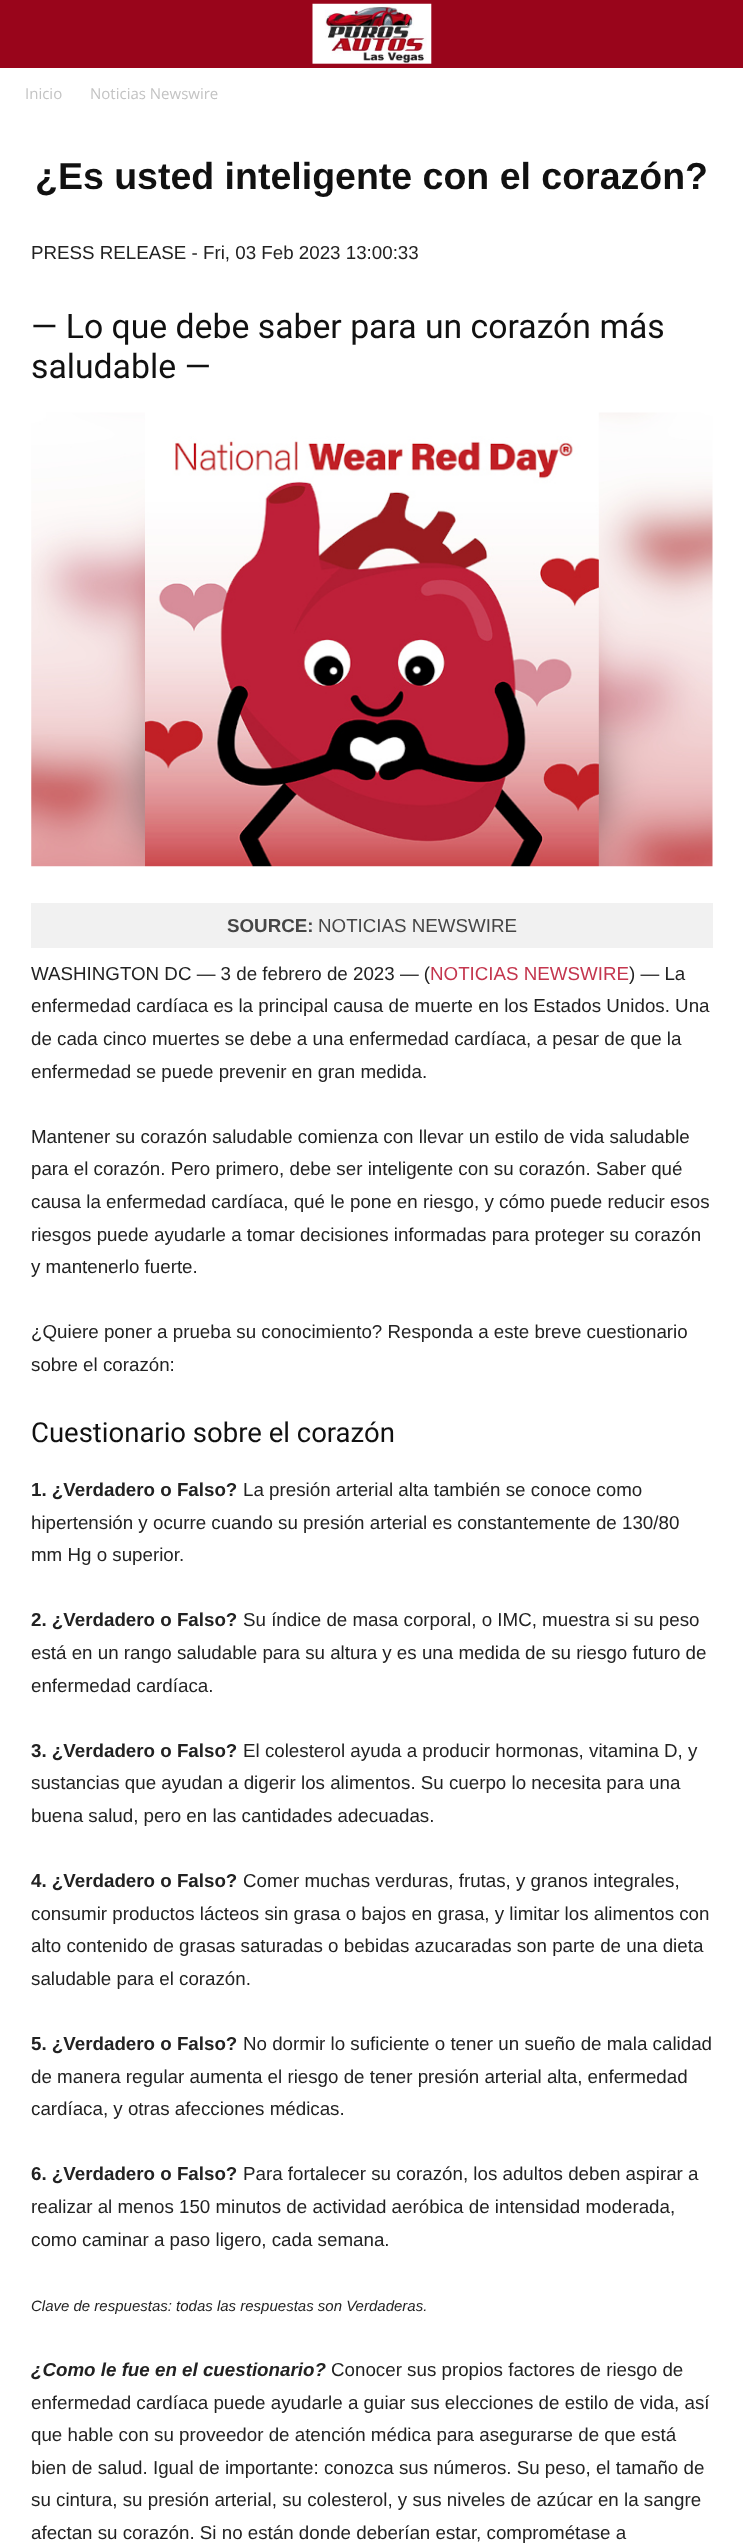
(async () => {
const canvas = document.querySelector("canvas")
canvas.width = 743
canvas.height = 2546
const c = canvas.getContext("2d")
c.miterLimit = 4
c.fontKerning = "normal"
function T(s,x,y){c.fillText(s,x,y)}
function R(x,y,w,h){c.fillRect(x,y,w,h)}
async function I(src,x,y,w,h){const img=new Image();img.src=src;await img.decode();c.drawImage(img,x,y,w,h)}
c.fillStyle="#fff"
R(0,0,743,2546)
c.fillStyle="#99051b"
R(0,0,743,68)
await I("1.png",312,3,120,61)
c.font="15px Open Sans"
c.fillStyle="#c3c3c3"
T("Inicio",25,99)
T("Noticias Newswire",90,99)
c.font="bold 37.5px Liberation Sans"
c.fillStyle="#111"
T("¿Es usted inteligente con el corazón?",35,189)
c.font="18.75px Liberation Sans"
c.fillStyle="#222"
T("PRESS RELEASE - Fri, 03 Feb 2023 13:00:33",31,259)
c.font="33.75px Roboto"
c.fillStyle="#111"
T("— Lo que debe saber para un corazón más",31,338)
T("saludable —",31,378)
await I("2.png",31,412,682,455)
c.fillStyle="#f1f1f1"
R(31,903,682,45)
c.font="bold 18.75px Liberation Sans"
c.fillStyle="#464646"
T("SOURCE:",227,932)
c.font="18.75px Liberation Sans"
T("NOTICIAS NEWSWIRE",318,932)
c.fillStyle="#222"
T("WASHINGTON DC — 3 de febrero de 2023 — (",31,980)
c.fillStyle="#c4364e"
T("NOTICIAS NEWSWIRE",430,980)
c.fillStyle="#222"
T(") — La",629,980)
T("enfermedad cardíaca es la principal causa de muerte en los Estados Unidos. Una",31,1012)
T("de cada cinco muertes se debe a una enfermedad cardíaca, a pesar de que la",31,1045)
T("enfermedad se puede prevenir en gran medida.",31,1078)
T("Mantener su corazón saludable comienza con llevar un estilo de vida saludable",31,1143)
T("para el corazón. Pero primero, debe ser inteligente con su corazón. Saber qué",31,1175)
T("causa la enfermedad cardíaca, qué le pone en riesgo, y cómo puede reducir esos",31,1208)
T("riesgos puede ayudarle a tomar decisiones informadas para proteger su corazón",31,1241)
T("y mantenerlo fuerte.",31,1273)
T("¿Quiere poner a prueba su conocimiento? Responda a este breve cuestionario",31,1338)
T("sobre el corazón:",31,1371)
c.font="27.5px Roboto"
c.fillStyle="#111"
T("Cuestionario sobre el corazón",31,1442)
c.font="bold 18.75px Liberation Sans"
c.fillStyle="#222"
T("1. ¿Verdadero o Falso?",31,1496)
c.font="18.75px Liberation Sans"
T("La presión arterial alta también se conoce como",243,1496)
T("hipertensión y ocurre cuando su presión arterial es constantemente de 130/80",31,1529)
T("mm Hg o superior.",31,1561)
c.font="bold 18.75px Liberation Sans"
T("2. ¿Verdadero o Falso?",31,1626)
c.font="18.75px Liberation Sans"
T("Su índice de masa corporal, o IMC, muestra si su peso",243,1626)
T("está en un rango saludable para su altura y es una medida de su riesgo futuro de",31,1659)
T("enfermedad cardíaca.",31,1692)
c.font="bold 18.75px Liberation Sans"
T("3. ¿Verdadero o Falso?",31,1757)
c.font="18.75px Liberation Sans"
T("El colesterol ayuda a producir hormonas, vitamina D, y",243,1757)
T("sustancias que ayudan a digerir los alimentos. Su cuerpo lo necesita para una",31,1789)
T("buena salud, pero en las cantidades adecuadas.",31,1822)
c.font="bold 18.75px Liberation Sans"
T("4. ¿Verdadero o Falso?",31,1887)
c.font="18.75px Liberation Sans"
T("Comer muchas verduras, frutas, y granos integrales,",243,1887)
T("consumir productos lácteos sin grasa o bajos en grasa, y limitar los alimentos con",31,1920)
T("alto contenido de grasas saturadas o bebidas azucaradas son parte de una dieta",31,1952)
T("saludable para el corazón.",31,1985)
c.font="bold 18.75px Liberation Sans"
T("5. ¿Verdadero o Falso?",31,2050)
c.font="18.75px Liberation Sans"
T("No dormir lo suficiente o tener un sueño de mala calidad",243,2050)
T("de manera regular aumenta el riesgo de tener presión arterial alta, enfermedad",31,2083)
T("cardíaca, y otras afecciones médicas.",31,2115)
c.font="bold 18.75px Liberation Sans"
T("6. ¿Verdadero o Falso?",31,2180)
c.font="18.75px Liberation Sans"
T("Para fortalecer su corazón, los adultos deben aspirar a",243,2180)
T("realizar al menos 150 minutos de actividad aeróbica de intensidad moderada,",31,2213)
T("como caminar a paso ligero, cada semana.",31,2246)
c.font="italic 15px Liberation Sans"
T("Clave de respuestas: todas las respuestas son Verdaderas.",31,2311)
c.font="italic bold 18.75px Liberation Sans"
T("¿Como le fue en el cuestionario?",31,2376)
c.font="18.75px Liberation Sans"
T("Conocer sus propios factores de riesgo de",331,2376)
T("enfermedad cardíaca puede ayudarle a guiar sus elecciones de estilo de vida, así",31,2409)
T("que hable con su proveedor de atención médica para asegurarse de que está",31,2441)
T("bien de salud. Igual de importante: conozca sus números. Su peso, el tamaño de",31,2474)
T("su cintura, su presión arterial, su colesterol, y sus niveles de azúcar en la sangre",31,2506)
T("afectan su corazón. Si no están donde deberían estar, comprométase a",31,2539)
})()
